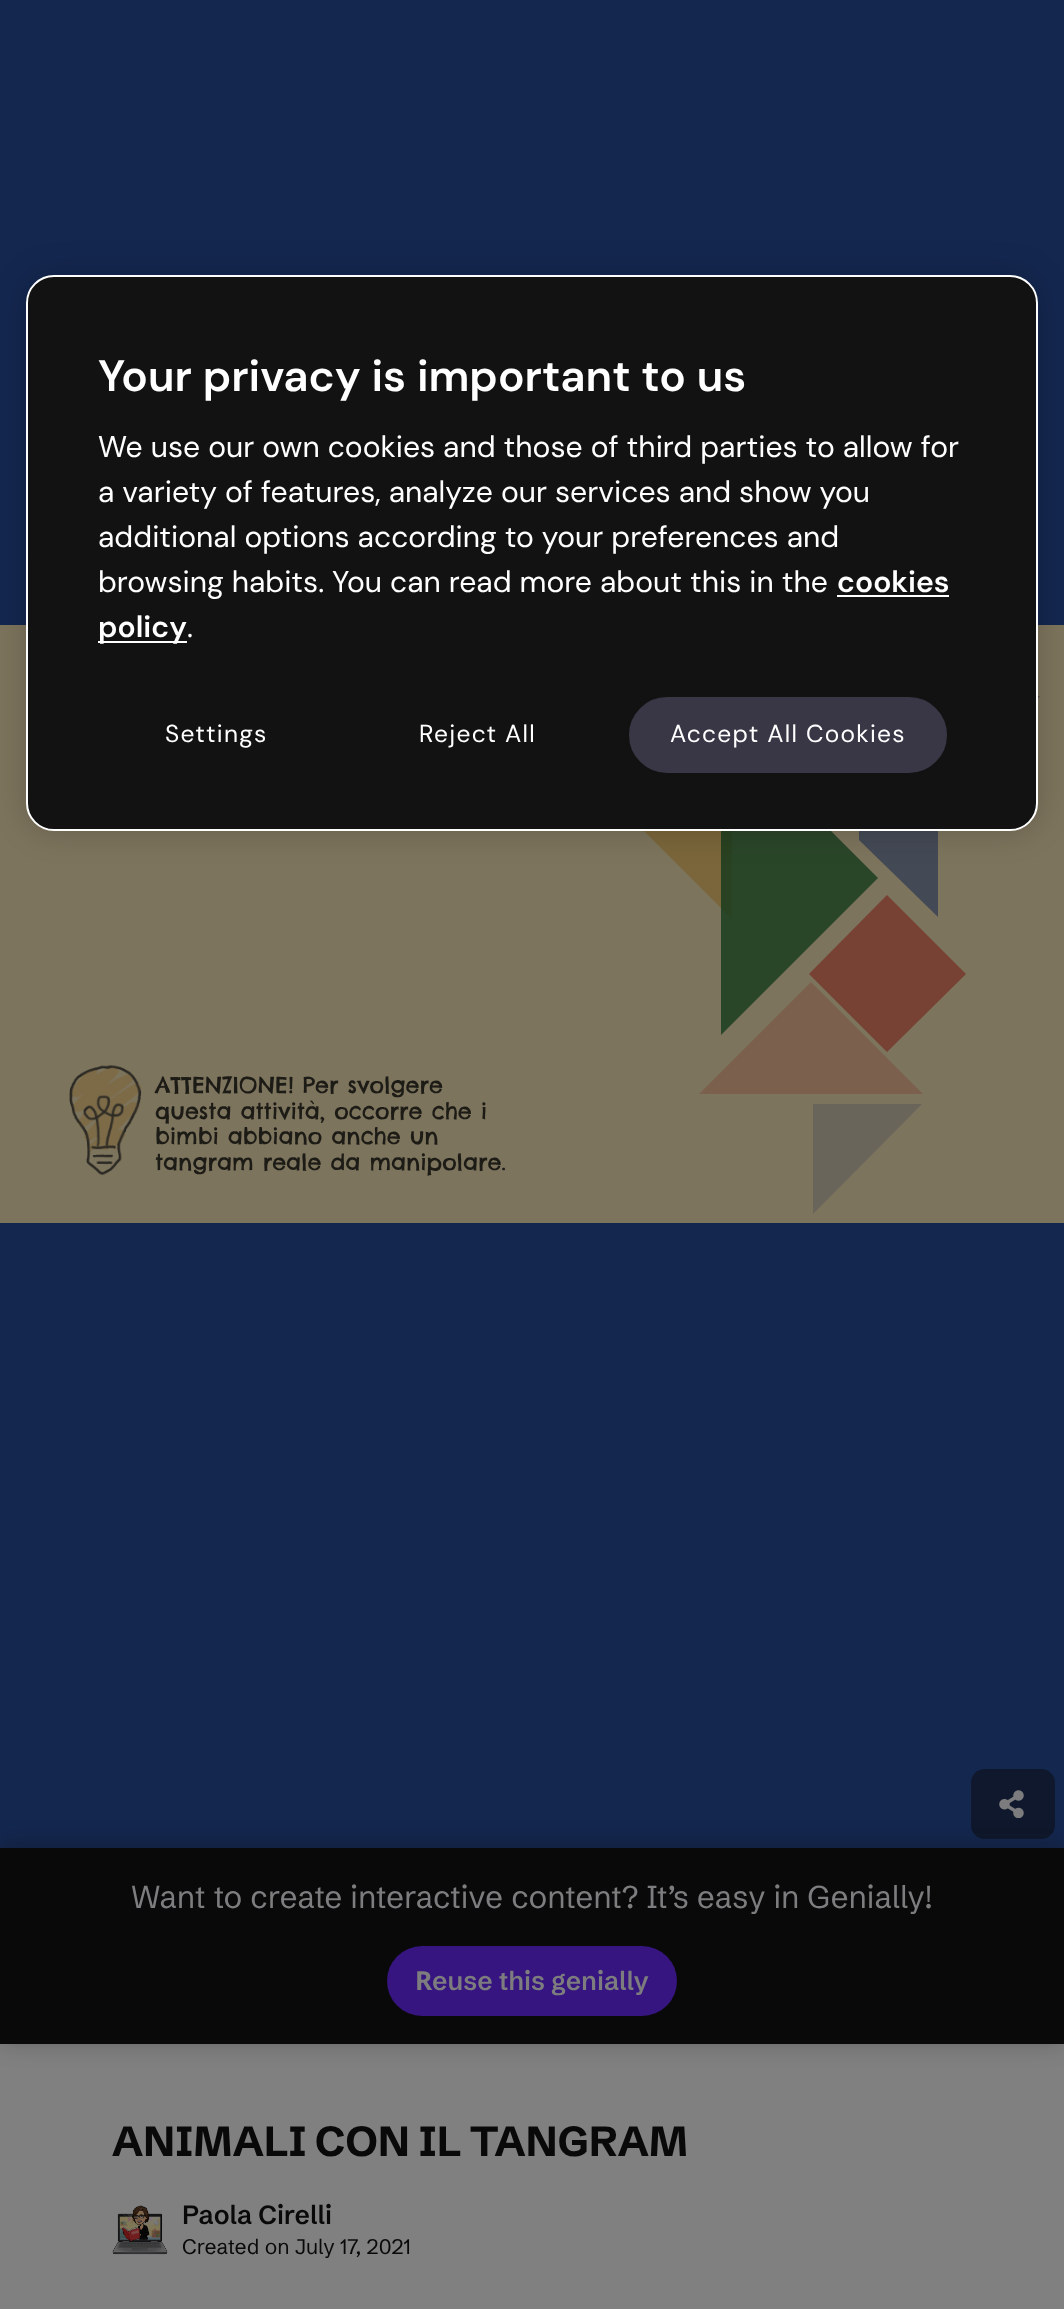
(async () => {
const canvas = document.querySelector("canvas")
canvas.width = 1064
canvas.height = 2309
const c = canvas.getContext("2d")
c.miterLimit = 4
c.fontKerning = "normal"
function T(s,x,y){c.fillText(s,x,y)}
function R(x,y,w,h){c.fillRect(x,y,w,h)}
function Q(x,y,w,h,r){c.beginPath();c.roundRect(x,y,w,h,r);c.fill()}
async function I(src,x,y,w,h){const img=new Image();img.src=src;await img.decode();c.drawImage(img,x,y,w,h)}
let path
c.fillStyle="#808080"
R(0,0,1064,2309)
c.fillStyle="#14274f"
R(0,0,1064,1848)
c.fillStyle="#7d745d"
R(0,625,1064,598)
c.fillStyle="#7b663b"
path = new Path2D("M732 919v-223h-223")
c.fill(path)
c.fillStyle="#11381ac4"
path = new Path2D("M855 901l-134 134v-314l157 157z")
c.fill(path)
c.fillStyle="#554c49"
path = new Path2D("M1040 696l-79 79l-80-79z")
c.fill(path)
c.fillStyle="#774134"
path = new Path2D("M887 1052l-78-78l78-79l79 79z")
c.fill(path)
c.save()
c.beginPath()
c.rect(859,684,79,233)
c.clip()
c.fillStyle="#444a55"
path = new Path2D("M938 917l-80-78v-154l80 78z")
c.fill(path)
c.restore()
c.fillStyle="#00000033"
c.filter="blur(16px)"
c.beginPath()
c.roundRect(26,275,1012,556,28)
c.fill()
c.filter="none"
c.fillStyle="#121212"
c.beginPath()
c.roundRect(27,276,1010,554,27)
c.fill()
c.strokeStyle="#fff"
c.lineWidth=2
c.stroke()
c.font="600 44.1px DM Sans"
c.fillStyle="#fff"
T("Your privacy is important to us",98,391)
c.font="30.1px DM Sans"
T("We use our own cookies and those of third parties to allow for",98,457)
T("a variety of features, analyze our services and show you",98,502)
T("additional options according to your preferences and",98,547)
T("browsing habits. You can read more about this in the",98,592)
c.font="600 30.1px DM Sans"
T("cookies",837,592)
R(837,595,112,2)
R(98,641,89,2)
T("policy",98,637)
c.font="30.1px DM Sans"
T(".",187,637)
c.letterSpacing="1.25px"
c.font="24.5px DM Sans"
T("Settings",165,742)
T("Reject All",419,742)
c.fillStyle="#393645"
c.beginPath()
c.roundRect(628,696,320,78,39)
c.fill()
c.strokeStyle="#121212"
c.stroke()
c.fillStyle="#fff"
T("Accept All Cookies",670,742)
c.fillStyle="#7a604d"
path = new Path2D("M923 1094l-112-112l-112 112z")
c.fill(path)
await I("1.png",69,1065,73,111)
c.letterSpacing="0px"
c.font="22.2px Chelsea Market"
c.fillStyle="#1d1b16"
T("ATTENZIONE! Per svolgere",155,1093)
T("questa attività, occorre che i",155,1119)
T("bimbi abbiano anche un",155,1144)
T("tangram reale da manipolare.",155,1170)
c.fillStyle="#69655a"
path = new Path2D("M922 1104h-109v110z")
c.fill(path)
c.fillStyle="#0f182c"
Q(971,1769,84,70,14)
await I("2.png",999,1790,25,28)
c.fillStyle="#0909094d"
c.filter="blur(11.5px)"
c.beginPath()
c.rect(0,1845,1064,196)
c.fill()
c.filter="none"
c.fillStyle="#090909"
R(0,1848,1064,196)
c.font="31.5px Schibsted Grotesk"
c.fillStyle="#7d7c7e"
T("Want to create interactive content? It’s easy in Genially!",131,1908)
c.fillStyle="#361580"
Q(387,1946,290,70,35)
c.font="bold 26.25px Noto Sans"
c.fillStyle="#7d7c7e"
T("R",415,1990)
c.font="600 26.25px Schibsted Grotesk"
T("euse this genially",432,1990)
c.font="bold 42px Schibsted Grotesk"
c.fillStyle="#090909"
T("ANIMALI CON IL TANGRAM",112,2156)
await I("3.png",112,2205,56,50)
c.font="600 26.25px Schibsted Grotesk"
T("Paola Cirelli",182,2224)
c.font="21px Schibsted Grotesk"
T("Created on July 17, 2021",182,2254)
})()
